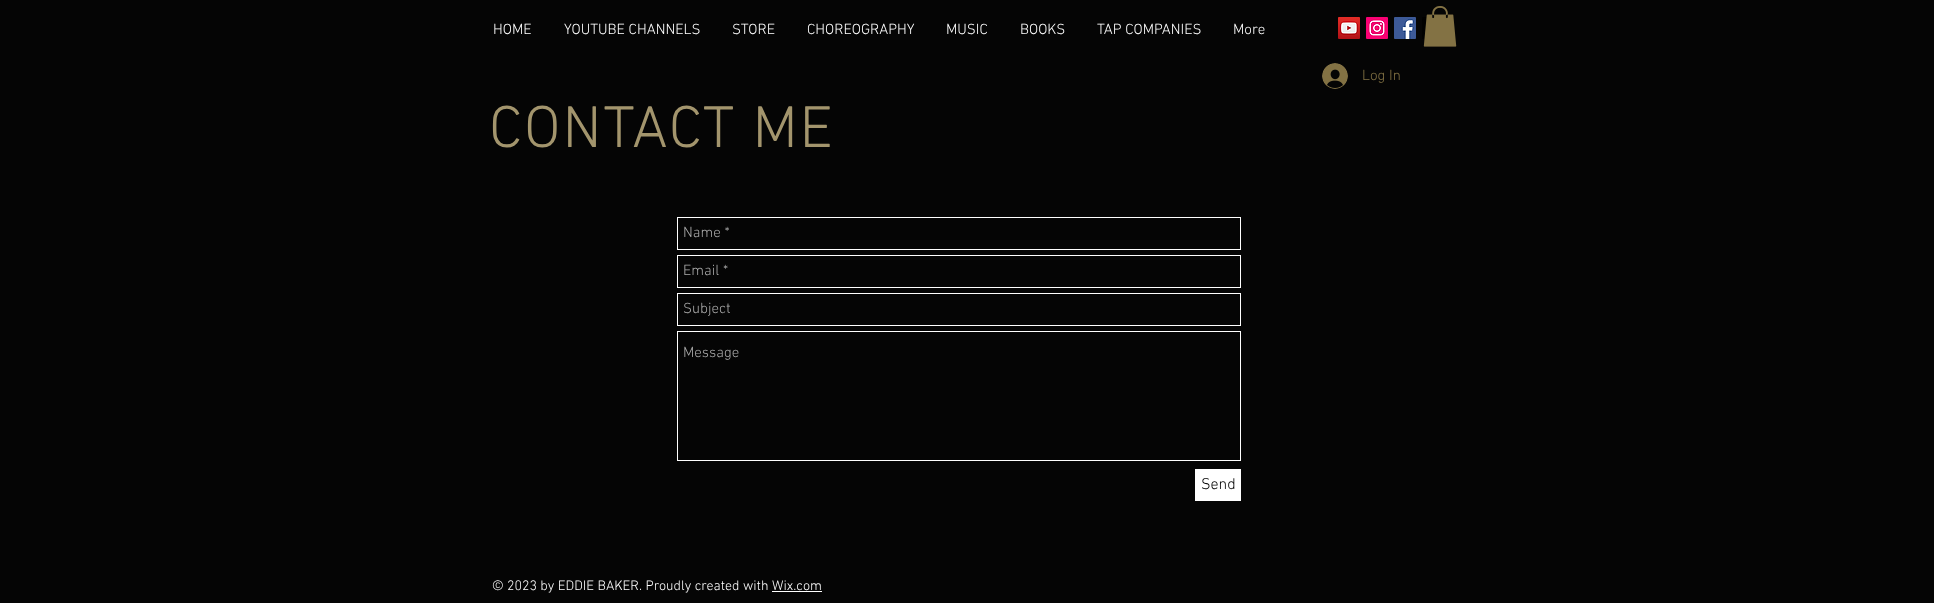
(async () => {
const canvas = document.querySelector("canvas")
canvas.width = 1934
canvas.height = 603
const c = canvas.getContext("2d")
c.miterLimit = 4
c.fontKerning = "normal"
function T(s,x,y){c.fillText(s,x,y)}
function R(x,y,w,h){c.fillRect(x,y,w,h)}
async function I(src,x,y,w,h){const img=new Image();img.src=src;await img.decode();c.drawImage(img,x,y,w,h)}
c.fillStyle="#050505"
R(0,0,1934,603)
c.font="300 15px 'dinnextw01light'"
c.fillStyle="#fff"
T("HOME",493,34)
T("YOUTUBE CHANNELS",564,34)
T("STORE",732,34)
T("CHOREOGRAPHY",807,34)
T("MUSIC",946,34)
T("BOOKS",1020,34)
T("TAP COMPANIES",1097,34)
T("More",1233,34)
await I("1.png",1338,17,22,22)
await I("2.png",1366,17,22,22)
await I("3.png",1394,17,22,22)
await I("4.png",1422,17,13,22)
await I("5.png",1423,6,34,41)
await I("6.png",1322,63,26,26)
c.fillStyle="#837244"
T("Log In",1362,80)
c.letterSpacing="1.75px"
c.font="300 60px 'dinnextw01light'"
c.fillStyle="#a3956d"
T("CONTACT ME",489,147)
c.strokeStyle="#fff"
c.strokeRect(677.5,217.5,563,32)
c.letterSpacing="0px"
c.font="300 15px 'dinnextw01light'"
c.fillStyle="#aaa"
T("Name *",683,237)
c.strokeRect(677.5,255.5,563,32)
T("Email *",683,275)
c.strokeRect(677.5,293.5,563,32)
T("Subject",683,313)
c.strokeRect(677.5,331.5,563,129)
T("Message",683,357)
c.fillStyle="#fff"
R(1195,469,46,32)
c.font="300 16px 'dinnextw01light'"
c.fillStyle="#050505"
T("Send",1201,489)
c.font="300 14px 'dinnextw01light'"
c.fillStyle="#fff"
T("© 2023 by EDDIE BAKER. Proudly created with Wix.com",492,590)
R(772,591,50,1)
})()
